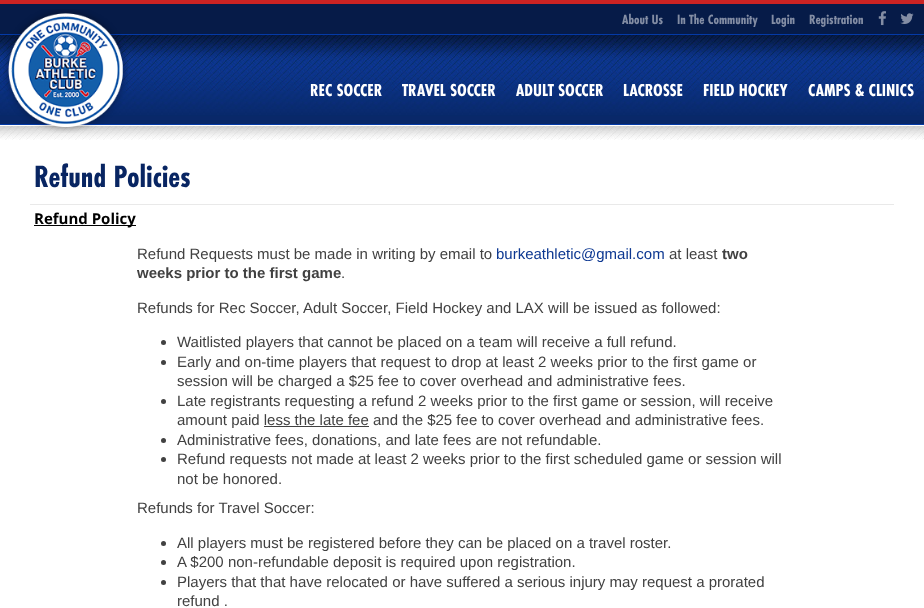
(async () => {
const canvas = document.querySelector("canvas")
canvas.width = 924
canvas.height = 608
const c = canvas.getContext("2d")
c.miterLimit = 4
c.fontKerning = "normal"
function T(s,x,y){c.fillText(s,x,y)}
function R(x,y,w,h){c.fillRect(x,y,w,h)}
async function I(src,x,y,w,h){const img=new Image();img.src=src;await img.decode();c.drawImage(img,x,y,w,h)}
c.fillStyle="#cb2323"
R(0,0,924,608)
c.fillStyle="#061b48"
R(0,4,924,30)
c.fillStyle="#043aa6"
R(0,34,924,1)
c.font="bold 14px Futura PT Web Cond"
c.fillStyle="#838da4"
T("About Us",622,24)
T("In The Community",677,24)
T("Login",771,24)
T("Registration",809,24)
await I("1.png",878,11,8,15)
await I("2.png",900,13,14,11)
await I("3.png",0,35,924,89)
c.fillStyle="#043aa6"
R(0,124,924,1)
c.fillStyle="#fff"
R(0,125,924,1)
await I("5.png",0,126,924,14)
await I("4.png",3,9,125,124)
c.font="bold 18px Futura PT Web Cond"
T("REC SOCCER",310,96)
T("TRAVEL SOCCER",402,96)
T("ADULT SOCCER",516,96)
T("LACROSSE",623,96)
T("FIELD HOCKEY",703,96)
T("CAMPS & CLINICS",808,96)
R(0,140,924,468)
c.font="bold 32px Futura PT Web Cond"
c.fillStyle="#082562"
T("Refund Policies",34,187)
c.fillStyle="#e9e9e9"
R(30,204,864,1)
c.fillStyle="#000"
R(34,225,102,1)
c.font="bold 15px Open Sans"
T("Refund Policy",34,224)
c.font="15px Liberation Sans"
c.fillStyle="#414141"
T("Refund Requests must be made in writing by email to",137,259)
c.fillStyle="#0c3791"
T("burkeathletic@gmail.com",496,259)
c.fillStyle="#414141"
T("at least",669,259)
c.font="bold 15px Liberation Sans"
T("two",722,259)
T("weeks prior to the first game",137,278)
c.font="15px Liberation Sans"
T(".",341,278)
T("Refunds for Rec Soccer, Adult Soccer, Field Hockey and LAX will be issued as followed:",137,313)
c.beginPath()
c.arc(163.5,342.5,2.5,0,7)
c.fill()
T("Waitlisted players that cannot be placed on a team will receive a full refund.",177,347)
c.beginPath()
c.arc(163.5,362.5,2.5,0,7)
c.fill()
T("Early and on-time players that request to drop at least 2 weeks prior to the first game or",177,367)
T("session will be charged a $25 fee to cover overhead and administrative fees.",177,386)
c.beginPath()
c.arc(163.5,401.5,2.5,0,7)
c.fill()
T("Late registrants requesting a refund 2 weeks prior to the first game or session, will receive",177,406)
T("amount paid less the late fee and the $25 fee to cover overhead and administrative fees.",177,425)
R(264,426,105,1)
c.beginPath()
c.arc(163.5,440.5,2.5,0,7)
c.fill()
T("Administrative fees, donations, and late fees are not refundable.",177,445)
c.beginPath()
c.arc(163.5,459.5,2.5,0,7)
c.fill()
T("Refund requests not made at least 2 weeks prior to the first scheduled game or session will",177,464)
T("not be honored.",177,484)
T("Refunds for Travel Soccer:",137,513)
c.beginPath()
c.arc(163.5,543.5,2.5,0,7)
c.fill()
T("All players must be registered before they can be placed on a travel roster.",177,548)
c.beginPath()
c.arc(163.5,562.5,2.5,0,7)
c.fill()
T("A $200 non-refundable deposit is required upon registration.",177,567)
c.beginPath()
c.arc(163.5,582.5,2.5,0,7)
c.fill()
T("Players that that have relocated or have suffered a serious injury may request a prorated",177,587)
T("refund .",177,606)
})()
